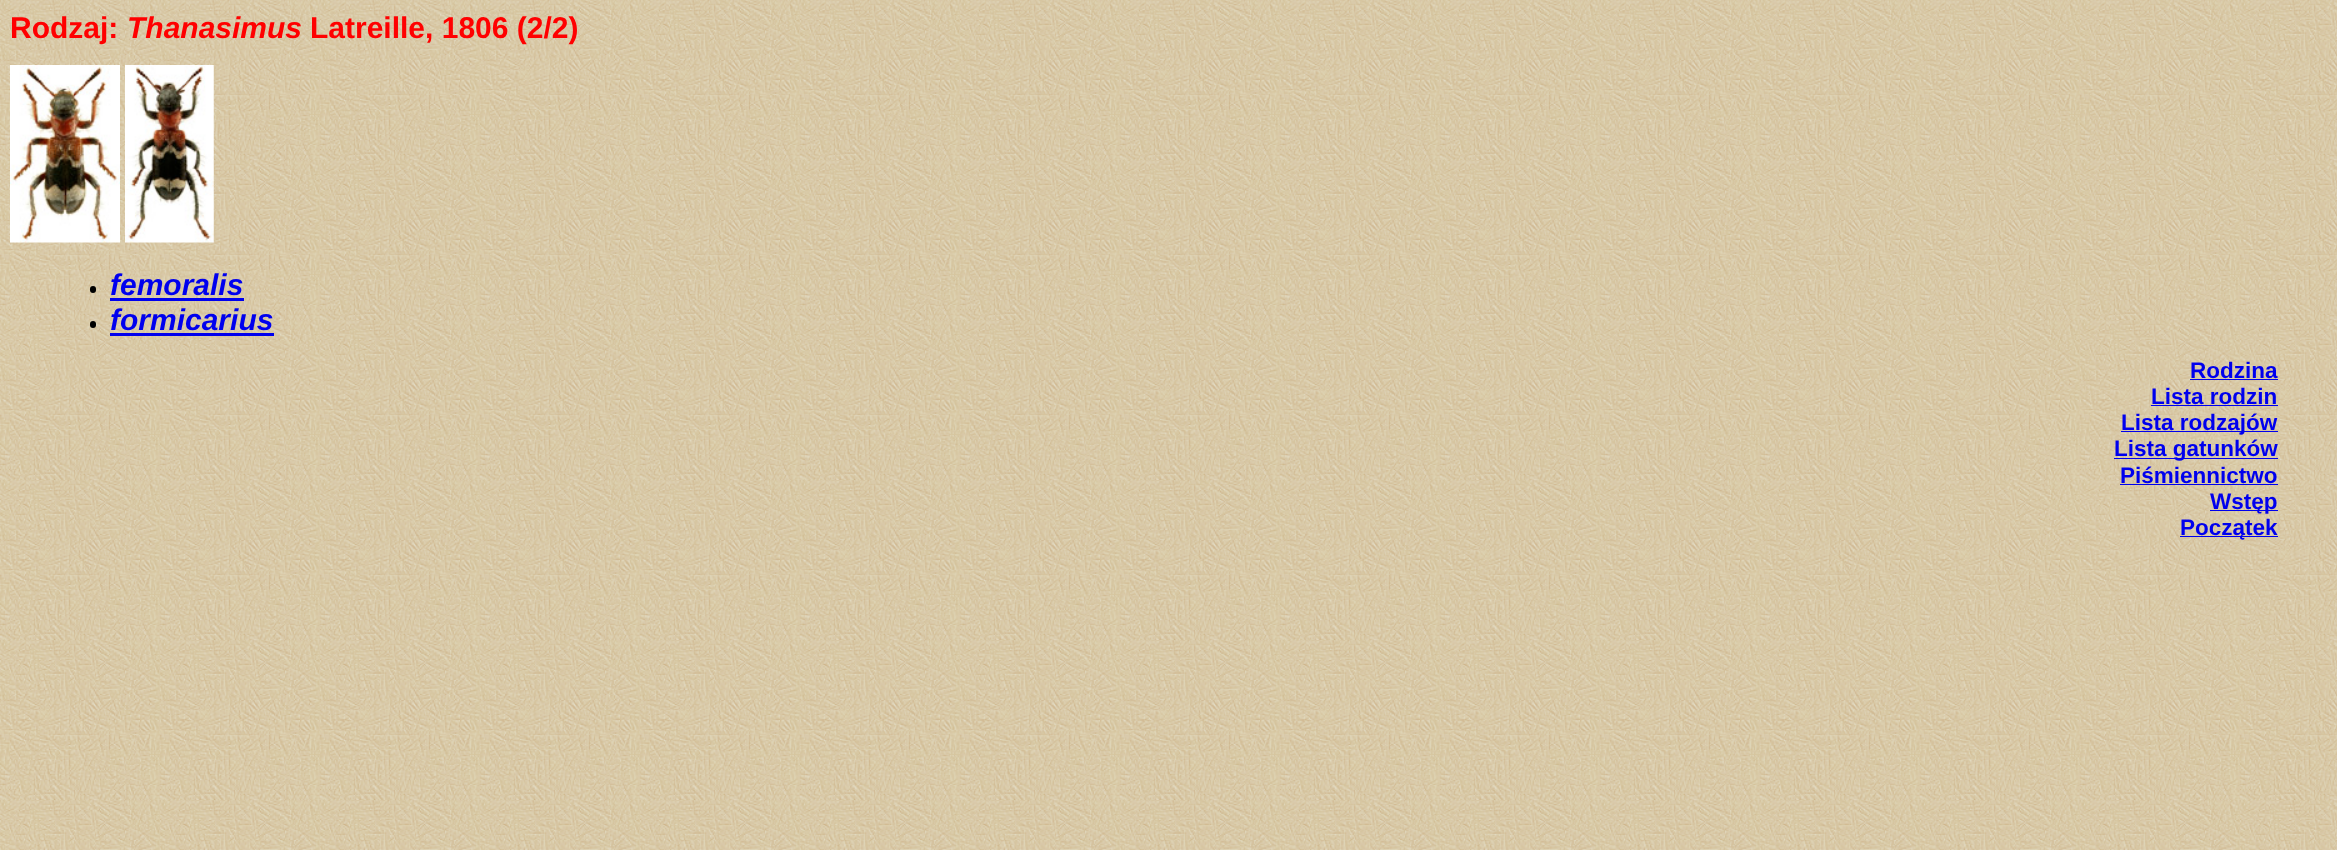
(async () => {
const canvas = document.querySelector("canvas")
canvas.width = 2337
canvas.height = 850
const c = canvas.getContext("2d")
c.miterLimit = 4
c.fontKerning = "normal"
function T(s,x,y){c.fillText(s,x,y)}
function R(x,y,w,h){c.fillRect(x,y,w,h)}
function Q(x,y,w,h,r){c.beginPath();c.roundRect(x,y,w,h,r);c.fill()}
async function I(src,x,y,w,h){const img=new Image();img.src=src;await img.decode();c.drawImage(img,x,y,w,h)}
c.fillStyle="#fff"
R(0,0,2337,850)
await I("1.png",0,0,2337,850)
c.font="bold 30px Liberation Sans"
c.fillStyle="#f00"
T("Rodzaj:",10,38)
c.font="italic bold 30px Liberation Sans"
T("Thanasimus",127,38)
c.font="bold 30px Liberation Sans"
T("Latreille, 1806 (2/2)",310,38)
await I("2.png",10,65,110,178)
await I("3.png",125,65,89,178)
c.fillStyle="#000"
Q(90,286,6,7,3)
c.font="italic bold 30px Liberation Sans"
c.fillStyle="#00e"
T("femoralis",110,295)
R(110,298,134,3)
c.fillStyle="#000"
Q(90,321,6,7,3)
c.fillStyle="#00e"
T("formicarius",110,330)
R(110,333,164,3)
c.font="bold 22.5px Liberation Sans"
T("Rodzina",2190,378)
R(2190,379,88,1)
T("Lista rodzin",2151,404)
R(2151,405,127,1)
R(2121,431,157,1)
T("Lista rodzajów",2121,430)
R(2114,458,164,1)
T("Lista gatunków",2114,456)
T("Piśmiennictwo",2120,483)
R(2120,484,158,1)
R(2210,510,68,1)
T("Wstęp",2210,509)
R(2180,536,98,1)
T("Początek",2180,535)
})()
